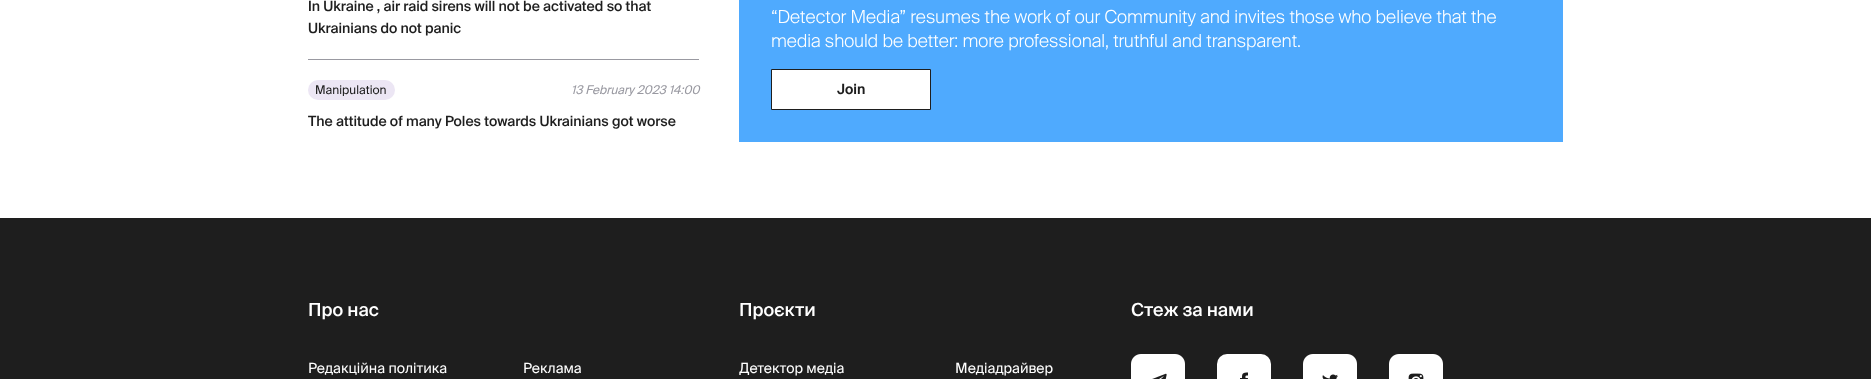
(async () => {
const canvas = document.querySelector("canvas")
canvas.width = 1871
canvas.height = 379
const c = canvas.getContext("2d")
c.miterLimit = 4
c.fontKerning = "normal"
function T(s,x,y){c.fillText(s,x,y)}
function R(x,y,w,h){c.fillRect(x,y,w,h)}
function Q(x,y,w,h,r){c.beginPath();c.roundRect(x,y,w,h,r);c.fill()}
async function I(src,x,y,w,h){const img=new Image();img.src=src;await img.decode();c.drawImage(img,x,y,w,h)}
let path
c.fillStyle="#fff"
R(0,0,1871,379)
c.fillStyle="#9999a1"
R(308,59,391,1)
c.font="500 14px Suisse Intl"
c.fillStyle="#1e1e1e"
T("In Ukraine , air raid sirens will not be activated so that",308,11)
T("Ukrainians do not panic",308,33)
c.fillStyle="#ece6f4"
Q(308,80,87,20,10)
c.font="12px Suisse Intl"
c.fillStyle="#1e1e1e"
T("Manipulation",315,94)
c.font="italic 12px Suisse Intl"
c.fillStyle="#9999a1"
T("13 February 2023 14:00",571,94)
c.font="500 14px Suisse Intl"
c.fillStyle="#1e1e1e"
T("The attitude of many Poles towards Ukrainians got worse",308,126)
c.fillStyle="#4faafe"
R(739,0,824,142)
c.font="300 18px Suisse Intl"
c.fillStyle="#fff"
T("“Detector Media” resumes the work of our Community and invites those who believe that the",771,23)
T("media should be better: more professional, truthful and transparent.",771,47)
c.beginPath()
c.rect(771.5,69.5,159,40)
c.fill()
c.strokeStyle="#1e1e1e"
c.stroke()
c.font="600 14px Suisse Intl"
c.fillStyle="#1e1e1e"
T("Join",837,94)
R(0,218,1871,161)
c.font="500 18px Suisse Intl"
c.fillStyle="#fff"
T("Про нас",308,316)
c.font="14px Suisse Intl"
T("Редакційна політика",308,373)
T("Реклама",523,373)
c.font="500 18px Suisse Intl"
T("Проєкти",739,316)
c.font="14px Suisse Intl"
T("Детектор медіа",739,373)
T("Медіадрайвер",955,373)
c.font="500 18px Suisse Intl"
T("Стеж за нами",1131,316)
await I("1.png",1131,354,54,25)
Q(1217,354,54,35,10)
c.fillStyle="#1d1d1d"
path = new Path2D("M1245.5 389.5v-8.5h2l.5-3h-2.5c0-2.5-.5-2.5 2.5-2.5v-3c-5 0-6 .5-6 5.5h-2v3h2v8.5z")
c.fill(path,"evenodd")
await I("2.png",1303,354,54,25)
await I("3.png",1389,354,54,25)
})()
